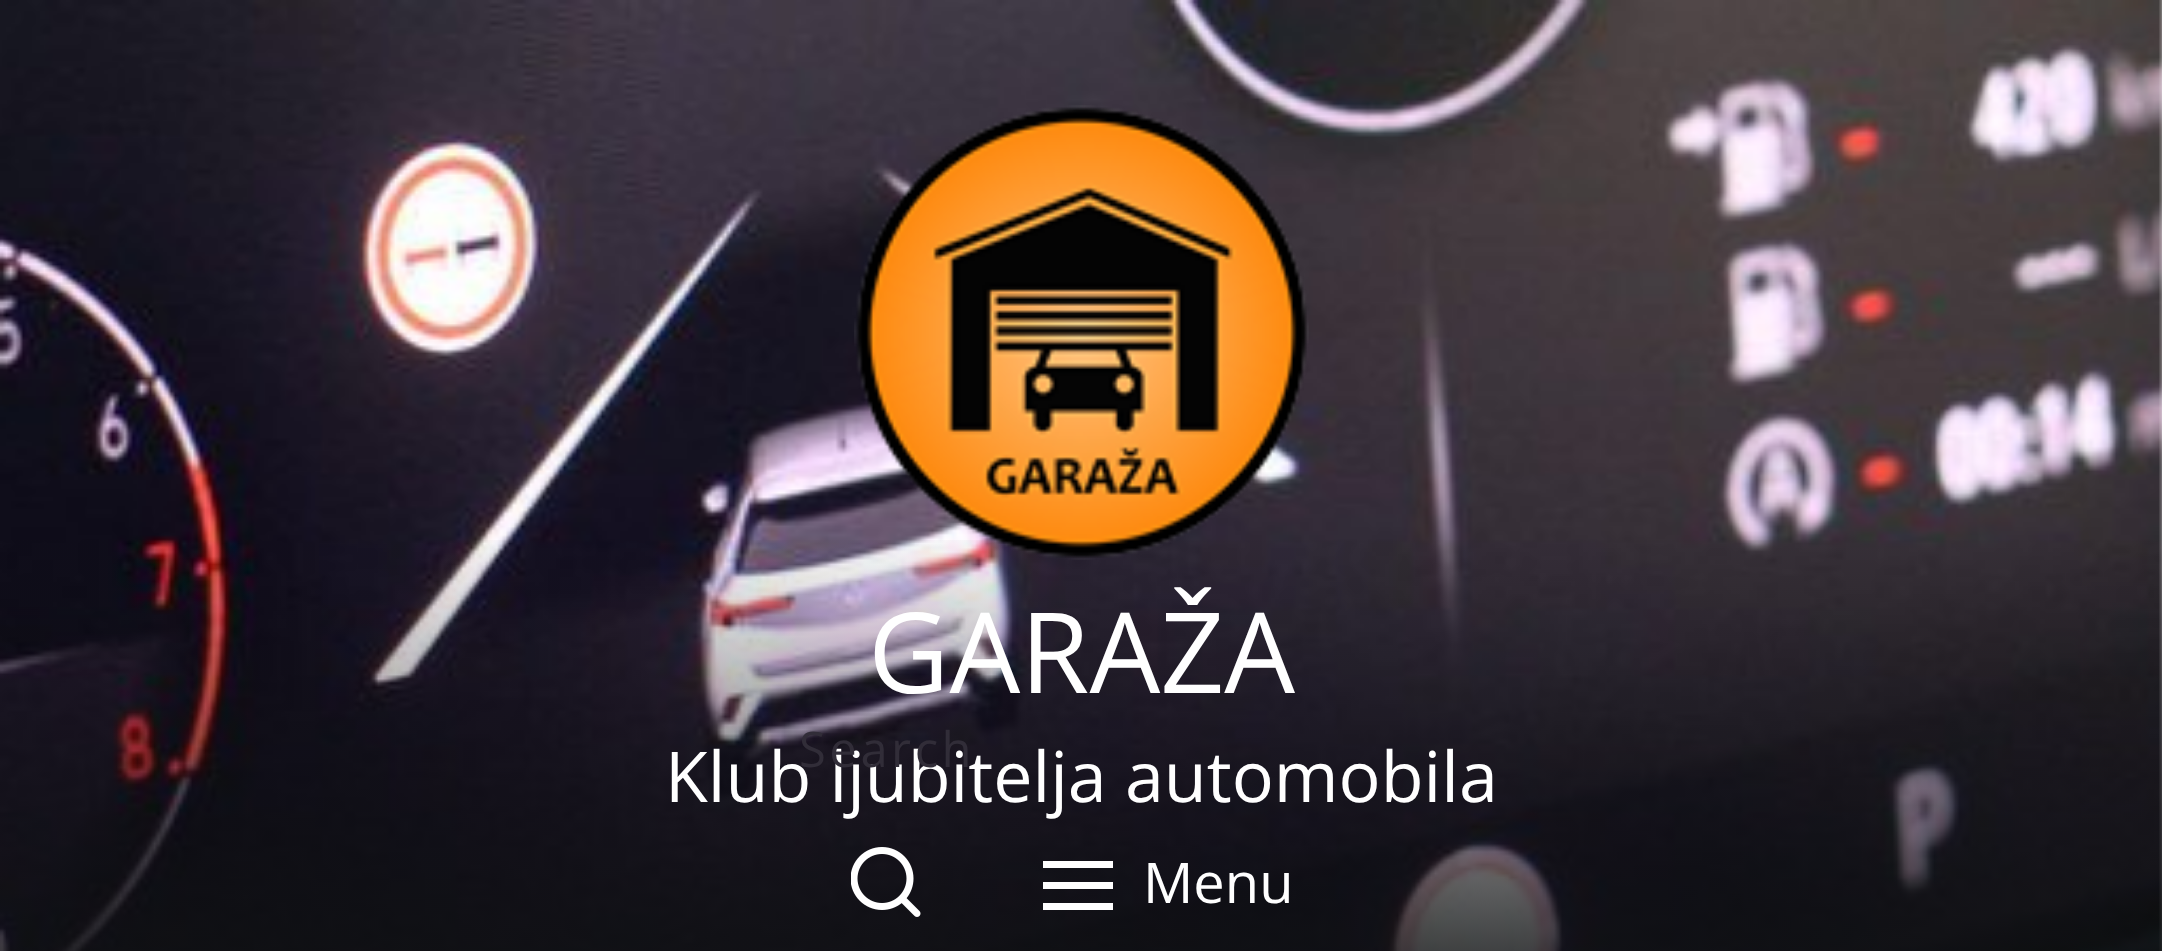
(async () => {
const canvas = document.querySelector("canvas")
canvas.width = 2162
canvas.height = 951
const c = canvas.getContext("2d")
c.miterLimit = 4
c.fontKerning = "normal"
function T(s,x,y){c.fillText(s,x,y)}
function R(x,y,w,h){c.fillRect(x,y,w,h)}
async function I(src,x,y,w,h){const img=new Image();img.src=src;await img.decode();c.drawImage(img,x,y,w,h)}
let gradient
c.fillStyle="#fff"
R(0,0,2162,951)
await I("1.png",0,0,2162,951)
gradient = c.createLinearGradient(1082,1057,1082,0)
gradient.addColorStop(0,"#101213")
gradient.addColorStop(.5,"#10121300")
c.fillStyle = gradient
R(0,540,2162,411)
await I("2.png",854,105,455,455)
c.font="112px Open Sans"
c.fillStyle="#fff"
T("GARAŽA",868,693)
c.font="70px Open Sans"
T("Klub ljubitelja automobila",665,802)
c.letterSpacing="3.5px"
c.font="49px Open Sans"
c.fillStyle="#312d38"
T("Search",799,767)
await I("3.png",851,847,70,70)
c.fillStyle="#fff"
R(1043,861,70,7)
R(1043,882,70,7)
R(1043,903,70,7)
c.letterSpacing="0px"
c.font="56px Open Sans"
T("Menu",1143,903)
})()
